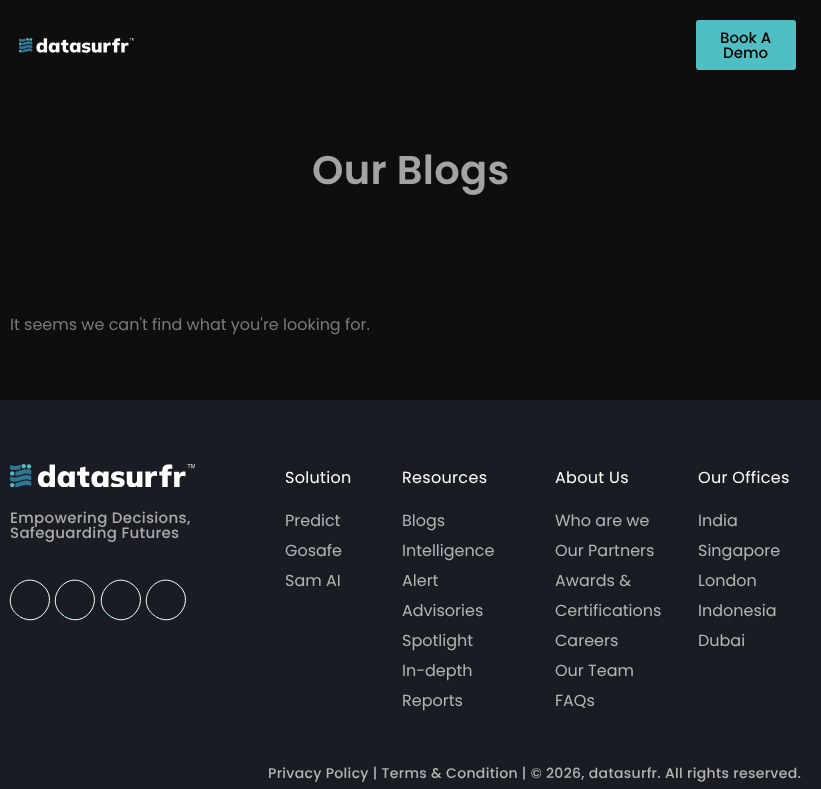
(async () => {
const canvas = document.querySelector("canvas")
canvas.width = 821
canvas.height = 789
const c = canvas.getContext("2d")
c.miterLimit = 4
c.fontKerning = "normal"
function T(s,x,y){c.fillText(s,x,y)}
function R(x,y,w,h){c.fillRect(x,y,w,h)}
function Q(x,y,w,h,r){c.beginPath();c.roundRect(x,y,w,h,r);c.fill()}
async function I(src,x,y,w,h){const img=new Image();img.src=src;await img.decode();c.drawImage(img,x,y,w,h)}
let path
c.fillStyle="#0e0e0e"
R(0,0,821,789)
await I("1.png",19,38,115,15)
c.fillStyle="#50bfc3"
Q(696,20,100,50,3)
c.font="500 15px Poppins"
c.fillStyle="#000"
T("Book A",720,43)
T("Demo",723,58)
c.letterSpacing="0.32px"
c.font="600 40px Poppins"
c.fillStyle="#a3a3a3"
T("Our Blogs",312,184)
c.letterSpacing="0px"
c.font="16px Poppins"
c.fillStyle="#7a7a7a"
T("It seems we can't find what you're looking for.",10,330)
c.fillStyle="#191d23"
R(0,400,821,389)
await I("2.png",10,464,185,23)
c.letterSpacing="0.32px"
c.font="500 15px Poppins"
c.fillStyle="#a8a9ab"
T("Empowering Decisions,",10,523)
T("Safeguarding Futures",10,538)
path = new Path2D("M19 616c-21.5-14.5 1-47 22-32c20.5 14.5 0 46-21.5 32.5")
c.strokeStyle="#fff"
c.stroke(path)
path = new Path2D("M19.5 616.5l-.5-.5")
c.strokeStyle="#50bfc3"
c.stroke(path)
path = new Path2D("M64 616c-21.5-14.5 1-47 22-32c20.5 14.5 0 46-21.5 32.5")
c.strokeStyle="#fff"
c.stroke(path)
path = new Path2D("M64.5 616.5l-.5-.5")
c.strokeStyle="#50bfc3"
c.stroke(path)
path = new Path2D("M110 616c-21.5-14.5 1-47 22-32c20.5 14.5 0 46-21.5 32.5")
c.strokeStyle="#fff"
c.stroke(path)
path = new Path2D("M110.5 616.5l-.5-.5")
c.strokeStyle="#50bfc3"
c.stroke(path)
path = new Path2D("M155 616c-21.5-14.5 1-47 22-32c20.5 14.5 0 46-21.5 32.5")
c.strokeStyle="#fff"
c.stroke(path)
path = new Path2D("M155.5 616.5l-.5-.5")
c.strokeStyle="#50bfc3"
c.stroke(path)
c.font="16px Poppins"
c.fillStyle="#fdfdfd"
T("Solution",285,483)
c.letterSpacing="0px"
c.fillStyle="#b2b4b5"
T("Predict",285,526)
T("Gosafe",285,556)
T("Sam AI",285,586)
c.letterSpacing="0.32px"
c.fillStyle="#fdfdfd"
T("Resources",402,483)
c.letterSpacing="0px"
c.fillStyle="#b2b4b5"
T("Blogs",402,526)
T("Intelligence",402,556)
T("Alert",402,586)
T("Advisories",402,616)
T("Spotlight",402,646)
T("In-depth",402,676)
T("Reports",402,706)
c.letterSpacing="0.32px"
c.fillStyle="#fdfdfd"
T("About Us",555,483)
c.letterSpacing="0px"
c.fillStyle="#b2b4b5"
T("Who are we",555,526)
T("Our Partners",555,556)
T("Awards &",555,586)
T("Certifications",555,616)
T("Careers",555,646)
T("Our Team",555,676)
T("FAQs",555,706)
c.letterSpacing="0.32px"
c.fillStyle="#fdfdfd"
T("Our Offices",698,483)
c.letterSpacing="0px"
c.fillStyle="#b2b4b5"
T("India",698,526)
T("Singapore",698,556)
T("London",698,586)
T("Indonesia",698,616)
T("Dubai",698,646)
c.letterSpacing="0.32px"
c.font="500 14px Poppins"
T("Privacy Policy | Terms & Condition | © 2026, datasurfr. All rights reserved.",268,778)
})()
